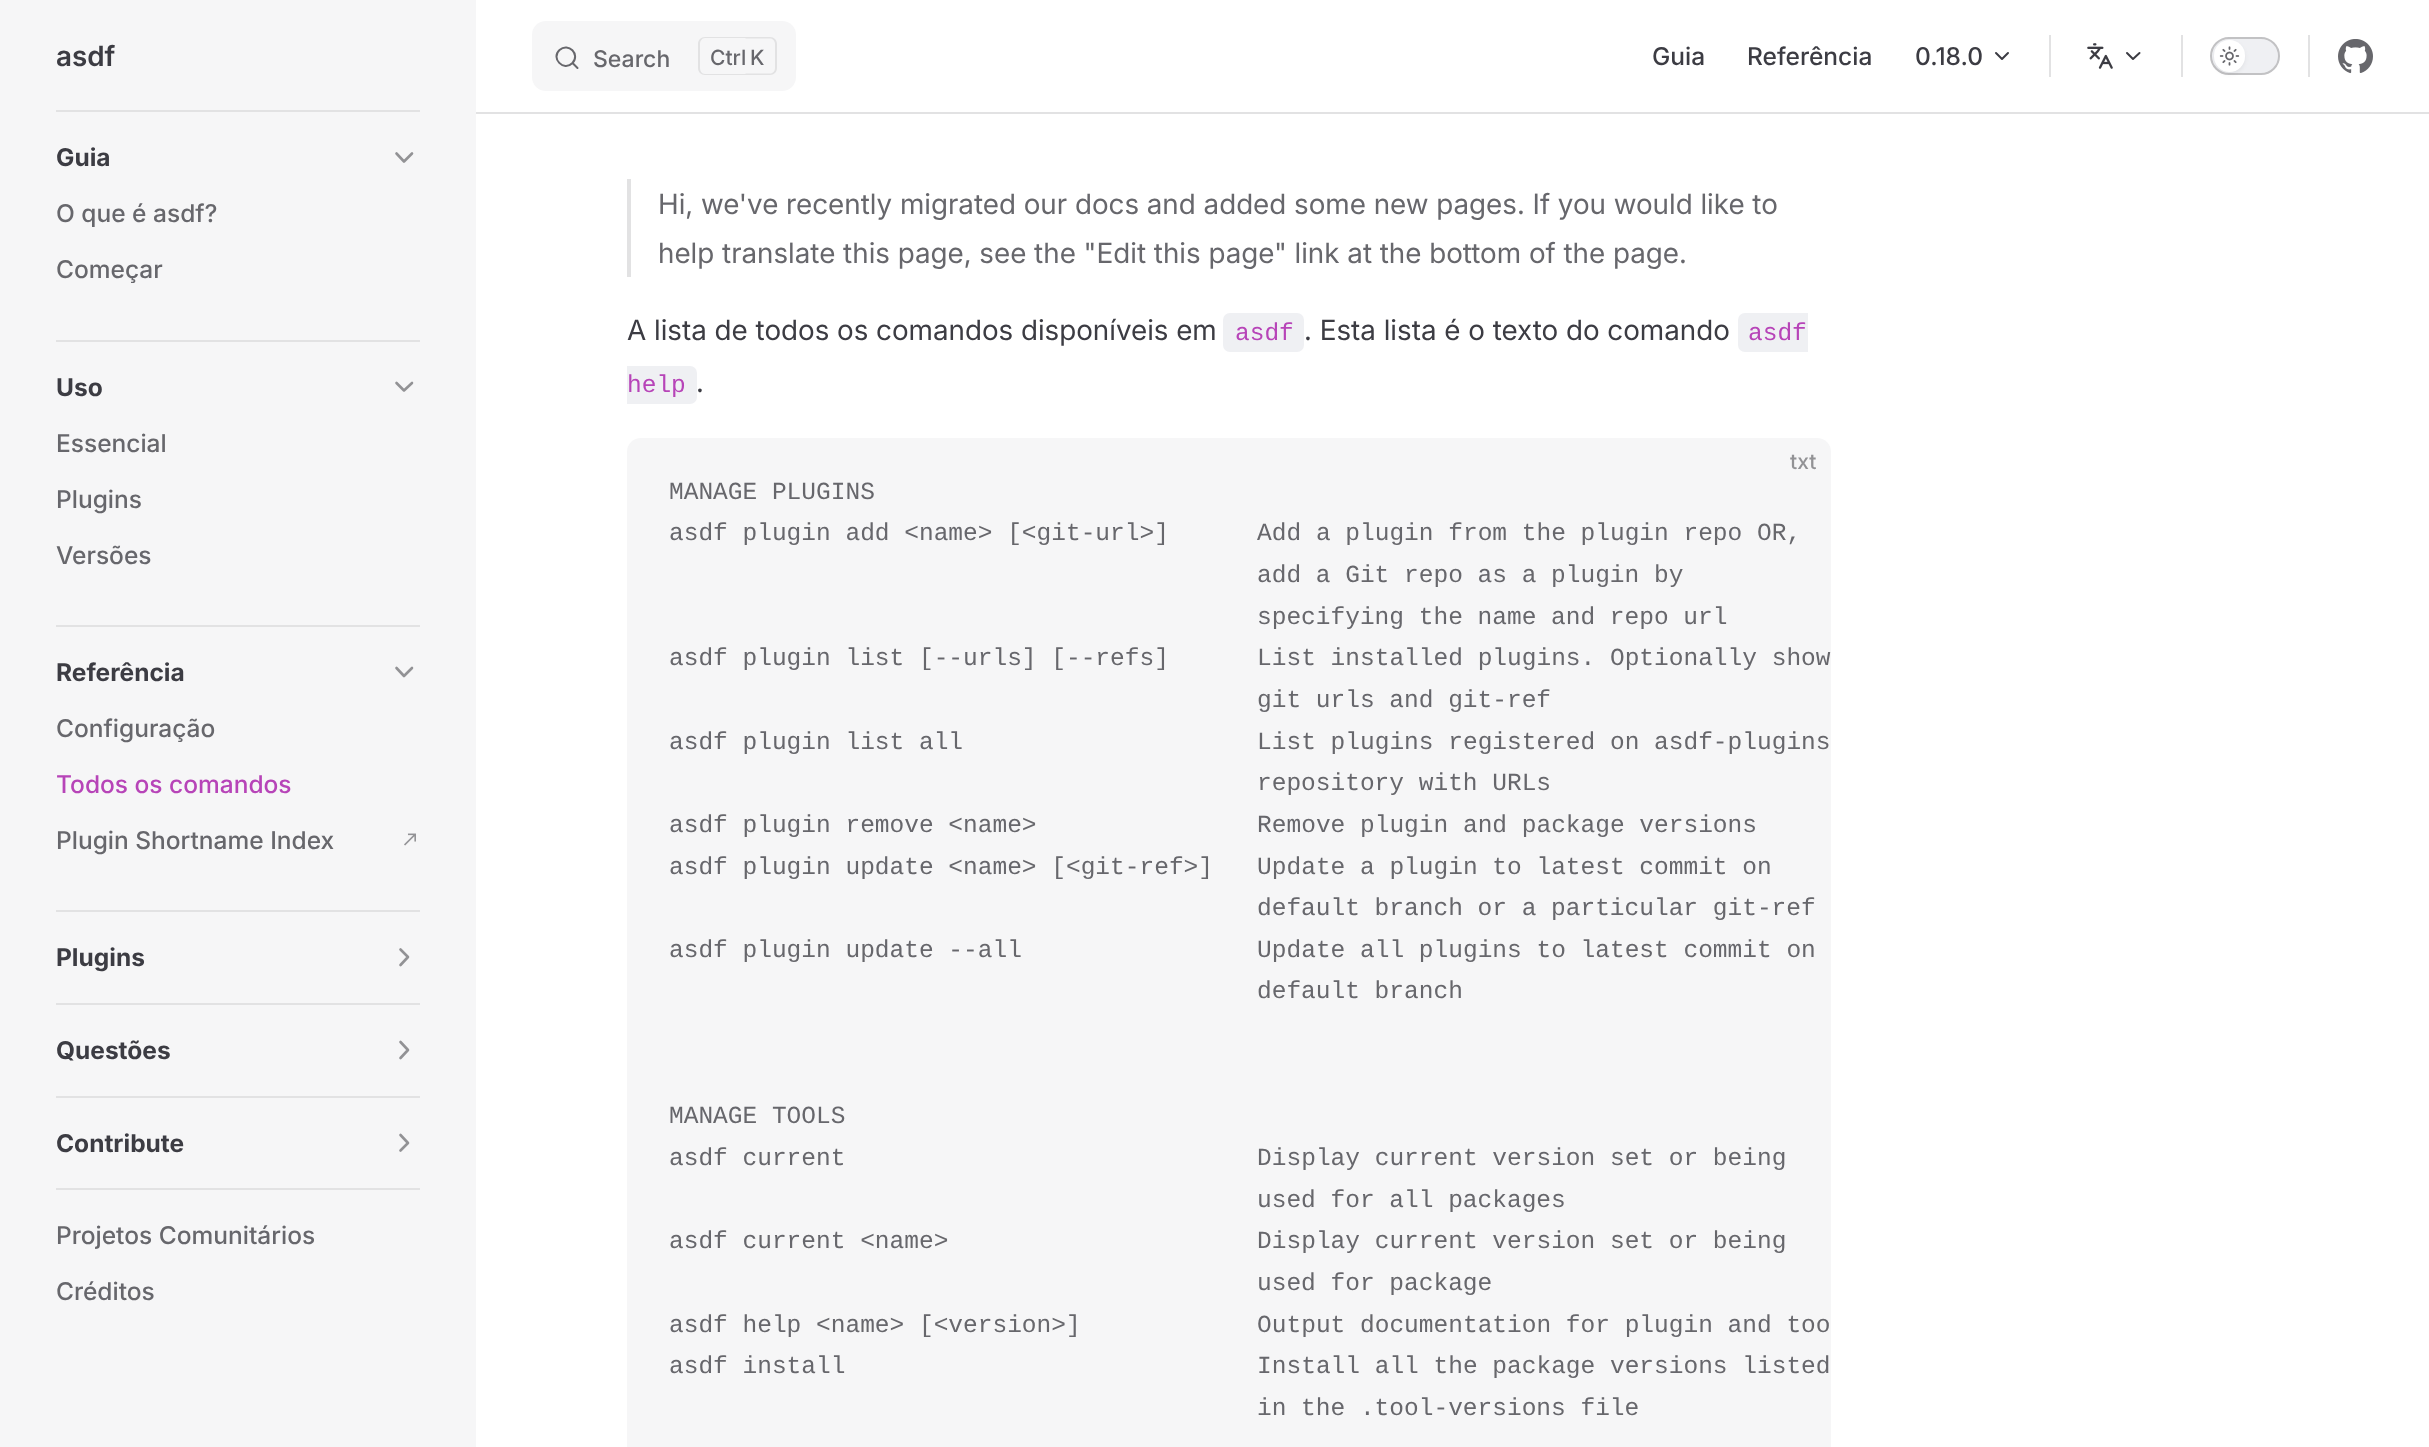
(async () => {
const canvas = document.querySelector("canvas")
canvas.width = 2429
canvas.height = 1447
const c = canvas.getContext("2d")
c.miterLimit = 4
c.fontKerning = "normal"
function T(s,x,y){c.fillText(s,x,y)}
function R(x,y,w,h){c.fillRect(x,y,w,h)}
function Q(x,y,w,h,r){c.beginPath();c.roundRect(x,y,w,h,r);c.fill()}
async function I(src,x,y,w,h){const img=new Image();img.src=src;await img.decode();c.drawImage(img,x,y,w,h)}
let path
c.fillStyle="#fff"
R(0,0,2429,1447)
c.fillStyle="#f6f6f7"
R(0,0,476,1447)
c.fillStyle="#e2e2e3"
R(56,110,364,2)
c.font="600 28px Inter"
c.fillStyle="#3c3c43"
T("asdf",56,66)
c.fillStyle="#f6f6f7"
Q(532,21,264,70,14)
path = new Path2D("M572.5 63l5 5l-5-5c-9 9-22-5-13-13c9-8 21 4.5 13 13z")
c.strokeStyle="#67676c"
c.lineWidth=2
c.lineCap="round"
c.lineJoin="round"
c.stroke(path)
c.font="500 23px Inter"
c.fillStyle="#67676c"
T("Search",593,67)
c.fillStyle="#e2e2e3"
path = new Path2D("M705 37h41v38h-41c-4 0-7-3-7-7v-24c0-4 3-7 7-7zm0 1h41v36h-41c-3 0-5-3-5-6v-24c0-3 2-6 5-6z")
c.fill(path,"evenodd")
c.font="500 21px Inter"
c.fillStyle="#67676c"
T("Ctrl",710,65)
c.fillStyle="#e2e2e3"
path = new Path2D("M745.5 37h24.5c4 0 7 3 7 7v24c0 4-3 7-7 7h-24.5zm0 1.5h24.5c3 0 5 2.5 5 5.5v24c0 3-2 5.5-5 5.5h-24.5z")
c.fill(path,"evenodd")
c.fillStyle="#67676c"
T("K",750,65)
c.font="500 24.5px Inter"
c.fillStyle="#3c3c43"
T("Guia",1652,65)
T("Referência",1747,65)
T("0.18.0",1915,65)
path = new Path2D("M1996 53l6 6l6-6")
c.strokeStyle="#3c3c43"
c.stroke(path)
c.fillStyle="#e2e2e3"
R(2049,35,2,42)
await I("1.png",2087,43,26,26)
path = new Path2D("M2127 53l6 6l6.5-6")
c.stroke(path)
R(2181,35,2,42)
c.fillStyle="#eff0f3"
c.beginPath()
c.roundRect(2211,38,68,36,18)
c.fill()
c.strokeStyle="#c2c2c4"
c.lineJoin="miter"
c.stroke()
c.fillStyle="#0000000f"
c.filter="blur(2px)"
c.beginPath()
c.roundRect(2214,42,31,32,15.5)
c.fill()
c.filter="none"
c.fillStyle="#fff"
Q(2214,40,31,32,15.5)
await I("2.png",2219,46,21,20)
c.fillStyle="#e2e2e3"
R(2308,35,2,42)
await I("3.png",2338,39,35,35)
R(476,112,1953,2)
c.font="bold 24.5px Inter"
c.fillStyle="#3c3c43"
T("Guia",56,166)
path = new Path2D("M396.5 153.5l7.5 8l8-8")
c.strokeStyle="#929295"
c.lineWidth=2.6
c.lineJoin="round"
c.stroke(path)
c.font="500 24.5px Inter"
c.fillStyle="#67676c"
T("O que é asdf?",56,222)
T("Começar",56,278)
c.fillStyle="#e2e2e3"
R(56,340,364,2)
c.font="bold 24.5px Inter"
c.fillStyle="#3c3c43"
T("Uso",56,396)
path = new Path2D("M396.5 383l7.5 7.5l8-7.5")
c.stroke(path)
c.font="500 24.5px Inter"
c.fillStyle="#67676c"
T("Essencial",56,452)
T("Plugins",56,508)
T("Versões",56,564)
c.fillStyle="#e2e2e3"
R(56,625,364,2)
c.font="bold 24.5px Inter"
c.fillStyle="#3c3c43"
T("Referência",56,681)
path = new Path2D("M396.5 668l7.5 8l8-8")
c.stroke(path)
c.font="500 24.5px Inter"
c.fillStyle="#67676c"
T("Configuração",56,737)
c.fillStyle="#b744b8"
T("Todos os comandos",56,793)
c.fillStyle="#67676c"
T("Plugin Shortname Index",56,849)
await I("4.png",404,833,12,13)
c.fillStyle="#e2e2e3"
R(56,910,364,2)
c.font="bold 24.5px Inter"
c.fillStyle="#3c3c43"
T("Plugins",56,966)
path = new Path2D("M400.5 965l7.5-8l-7.5-7.5")
c.stroke(path)
c.fillStyle="#e2e2e3"
R(56,1003,364,2)
c.fillStyle="#3c3c43"
T("Questões",56,1059)
path = new Path2D("M400.5 1058l7.5-8l-7.5-8")
c.stroke(path)
c.fillStyle="#e2e2e3"
R(56,1096,364,2)
c.fillStyle="#3c3c43"
T("Contribute",56,1152)
path = new Path2D("M400.5 1150.5l7.5-7.5l-7.5-8")
c.stroke(path)
c.fillStyle="#e2e2e3"
R(56,1188,364,2)
c.font="500 24.5px Inter"
c.fillStyle="#67676c"
T("Projetos Comunitários",56,1244)
T("Créditos",56,1300)
c.fillStyle="#e2e2e3"
R(627,179,4,98)
c.font="28px Inter"
c.fillStyle="#67676c"
T("Hi, we've recently migrated our docs and added some new pages. If you would like to",658,214)
T("help translate this page, see the \"Edit this page\" link at the bottom of the page.",658,263)
c.fillStyle="#3c3c43"
T("A lista de todos os comandos disponíveis em",627,340)
c.fillStyle="#eff0f3"
Q(1223,313,81,39,7)
c.font="24.5px Liberation Mono"
c.fillStyle="#b744b8"
T("asdf",1235,340)
c.font="28px Inter"
c.fillStyle="#3c3c43"
T(". Esta lista é o texto do comando",1304,340)
c.fillStyle="#eff0f3"
c.beginPath()
c.roundRect(1738,313,70,39,[7,0,0,7])
c.fill()
c.font="24.5px Liberation Mono"
c.fillStyle="#b744b8"
T("asdf",1748,340)
c.fillStyle="#eff0f3"
c.beginPath()
c.roundRect(627,366,70,38,[0,7,7,0])
c.fill()
c.fillStyle="#b744b8"
T("help",627,392)
c.font="28px Inter"
c.fillStyle="#3c3c43"
T(".",696,392)
c.fillStyle="#f6f6f7"
Q(627,438,1204,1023,14)
c.font="500 21px Inter"
c.fillStyle="#929295"
T("txt",1790,469)
c.font="24.5px Liberation Mono"
c.fillStyle="#67676c"
T("MANAGE PLUGINS",669,499)
T("asdf plugin add <name> [<git-url>]      Add a plugin from the plugin repo OR,",669,540)
T("add a Git repo as a plugin by",1257,582)
T("specifying the name and repo url",1257,624)
T("asdf plugin list [--urls] [--refs]      List installed plugins. Optionally show",669,665)
T("git urls and git-ref",1257,707)
T("asdf plugin list all                    List plugins registered on asdf-plugins",669,749)
T("repository with URLs",1257,790)
T("asdf plugin remove <name>               Remove plugin and package versions",669,832)
T("asdf plugin update <name> [<git-ref>]   Update a plugin to latest commit on",669,874)
T("default branch or a particular git-ref",1257,915)
T("asdf plugin update --all                Update all plugins to latest commit on",669,957)
T("default branch",1257,998)
T("MANAGE TOOLS",669,1123)
T("asdf current                            Display current version set or being",669,1165)
T("used for all packages",1257,1207)
T("asdf current <name>                     Display current version set or being",669,1248)
T("used for package",1257,1290)
T("asdf help <name> [<version>]            Output documentation for plugin and too",669,1332)
T("asdf install                            Install all the package versions listed",669,1373)
T("in the .tool-versions file",1257,1415)
})()
